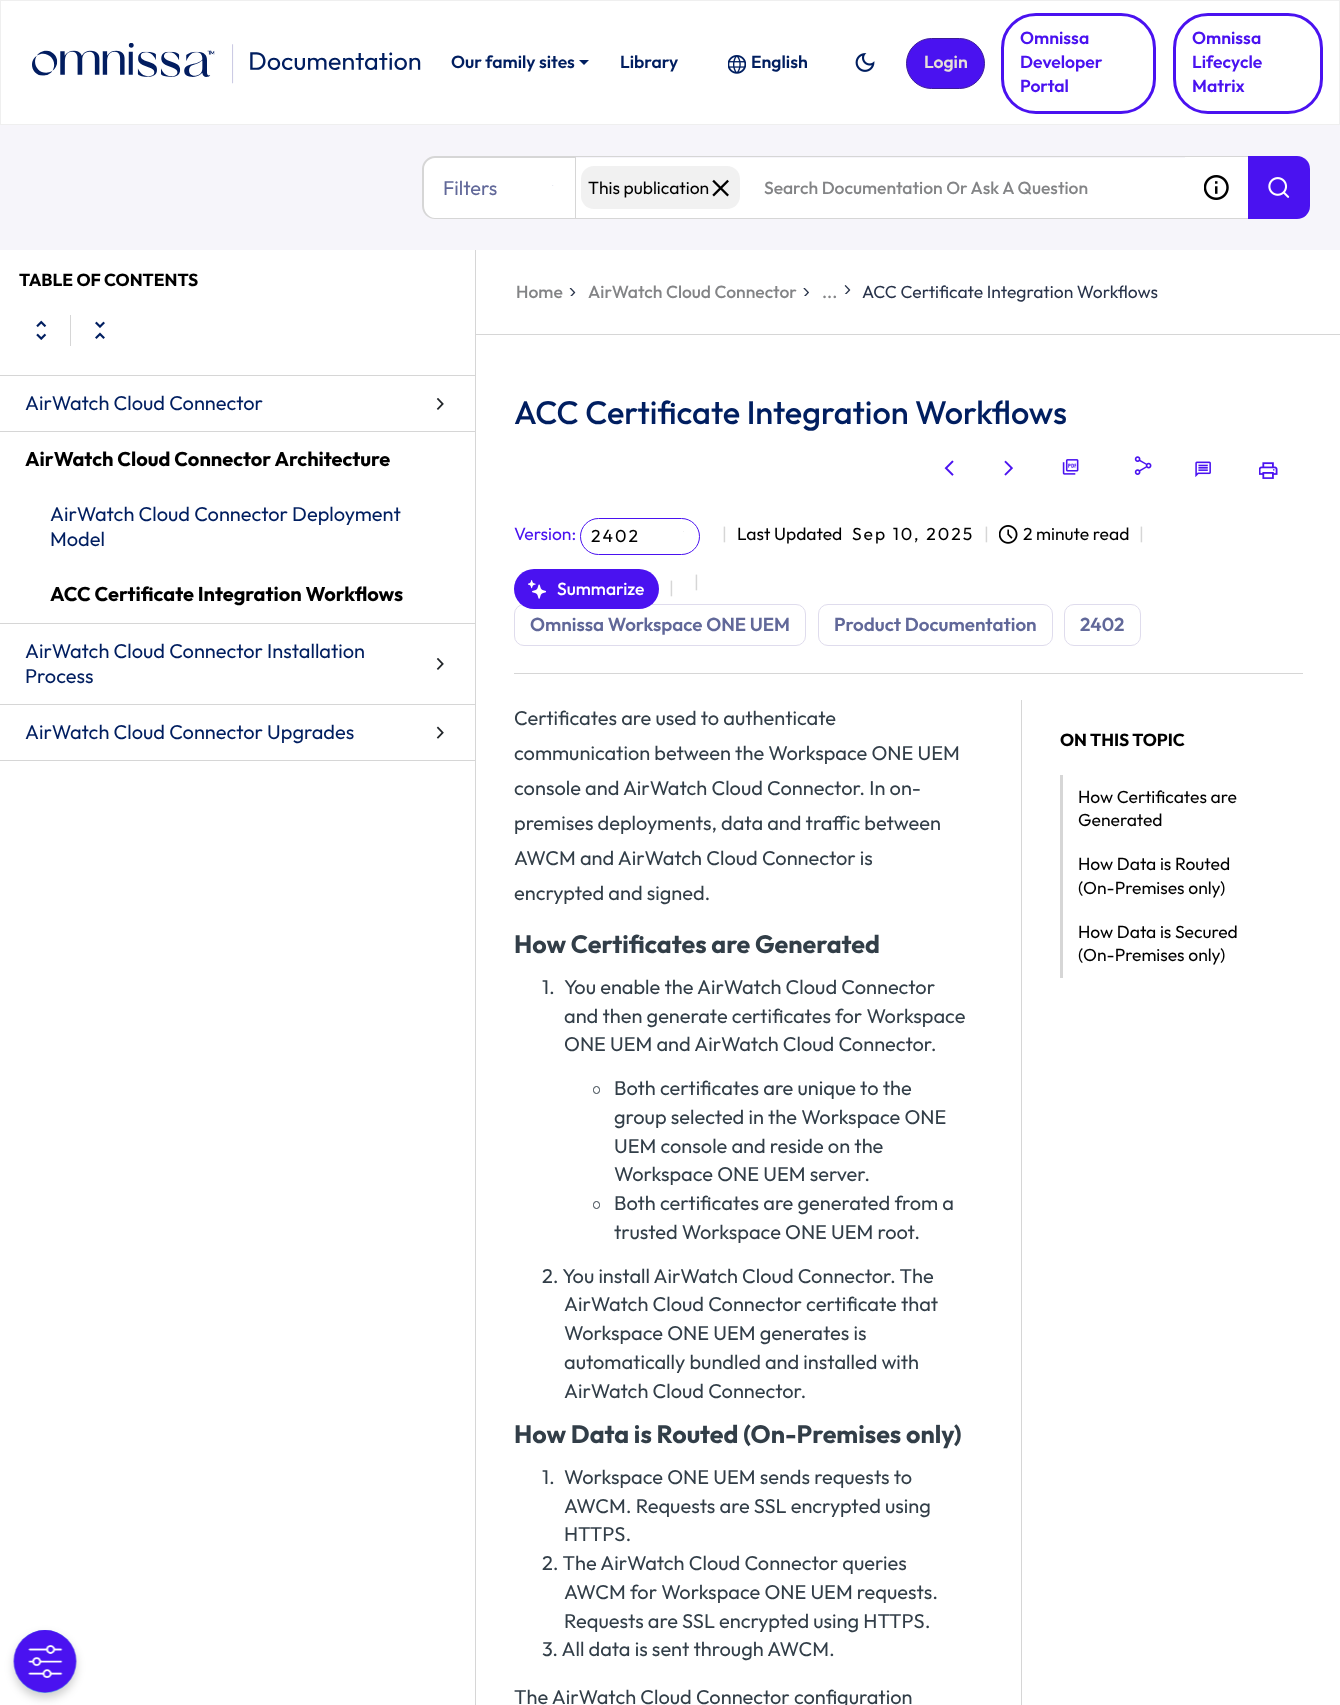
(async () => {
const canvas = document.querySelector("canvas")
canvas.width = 1340
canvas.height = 1705
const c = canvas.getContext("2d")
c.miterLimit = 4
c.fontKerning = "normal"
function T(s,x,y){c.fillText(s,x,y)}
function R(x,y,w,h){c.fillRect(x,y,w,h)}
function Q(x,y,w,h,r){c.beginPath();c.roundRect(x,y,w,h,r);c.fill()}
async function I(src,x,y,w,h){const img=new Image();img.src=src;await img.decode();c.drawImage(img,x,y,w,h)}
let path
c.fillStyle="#fff"
R(0,0,1340,1705)
c.strokeStyle="#efefef"
c.strokeRect(.5,.5,1339,124)
await I("1.png",32,43,389,41)
c.font="600 17.5px Outfit"
c.fillStyle="#001e60"
T("Our family sites",451,68)
path = new Path2D("M579 60h10l-5 5z")
c.fill(path)
T("Library",620,68)
await I("2.png",728,55,18,19)
T("English",751,68)
await I("3.png",855,53,20,19)
c.fillStyle="#4a12f0"
c.beginPath()
c.roundRect(906.5,38.5,78,50,25)
c.fill()
c.strokeStyle="#3b1b98"
c.stroke()
c.fillStyle="#e5e0d8"
T("Login",924,68)
c.beginPath()
c.roundRect(1002.5,14.5,152,98,33.5)
c.strokeStyle="#4a12f0"
c.lineWidth=3
c.stroke()
c.fillStyle="#4a12f0"
T("Omnissa",1020,44)
T("Developer",1020,68)
T("Portal",1020,92)
c.beginPath()
c.roundRect(1174.5,14.5,147,98,33.5)
c.stroke()
T("Omnissa",1192,44)
T("Lifecycle",1192,68)
T("Matrix",1192,92)
c.fillStyle="#f6f5fa"
R(0,125,1340,125)
c.fillStyle="#fff"
c.beginPath()
c.roundRect(423,156,152,63,[13,0,0,13])
c.fill()
c.fillStyle="#d6d6d6"
path = new Path2D("M435 156h140v63h-140c-7 0-13-6-13-13v-37c0-7 6-13 13-13zm0 2h140v60h-140c-6 0-11-6-11-12v-37c0-6 5-11 11-11z")
c.fill(path,"evenodd")
c.font="100 20px Outfit"
c.fillStyle="#616899"
T("Filters",443,195)
await I("4.png",552,185,2,1)
c.fillStyle="#fff"
R(1185,157,63,61)
c.fillStyle="#d6d6d6"
R(575,156,673,1)
R(575,218,673,1)
await I("5.png",1204,175,25,25)
c.fillStyle="#4a12f0"
c.beginPath()
c.roundRect(1248,156,62,63,[0,13,13,0])
c.fill()
await I("6.png",1268,177,22,21)
c.fillStyle="#fff"
R(576,158,609,60)
c.fillStyle="#f1f1f1"
Q(581,166,159,43,13)
c.font="100 17.5px Outfit"
c.fillStyle="#000"
T("This publication",588,194)
await I("7.png",712,179,17,18)
c.fillStyle="#d6d6d6"
R(575,156,1,63)
c.font="500 17.5px Outfit"
c.fillStyle="#838486"
T("Search Documentation Or Ask A Question",764,194)
c.fillStyle="#d6d6d6"
R(475,250,1,1455)
R(0,375,475,1)
c.font="bold 17.5px Outfit"
c.fillStyle="#000"
T("TABLE OF CONTENTS",19,286)
await I("8.png",36,320,11,20)
c.fillStyle="#d6d6d6"
R(70,315,1,31)
await I("9.png",95,321,10,18)
R(0,431,475,1)
c.font="100 20px Outfit"
c.fillStyle="#001e60"
T("AirWatch Cloud Connector",25,410)
await I("10.png",436,398,8,12)
c.fillStyle="#d6d6d6"
R(0,623,475,1)
c.font="bold 20px Outfit"
c.fillStyle="#000"
T("AirWatch Cloud Connector Architecture",25,466)
c.font="100 20px Outfit"
c.fillStyle="#001e60"
T("AirWatch Cloud Connector Deployment",50,521)
T("Model",50,546)
c.font="bold 20px Outfit"
c.fillStyle="#000"
T("ACC Certificate Integration Workflows",50,601)
c.fillStyle="#d6d6d6"
R(0,704,475,1)
c.font="100 20px Outfit"
c.fillStyle="#001e60"
T("AirWatch Cloud Connector Installation",25,658)
T("Process",25,683)
await I("10.png",436,658,8,12)
c.fillStyle="#d6d6d6"
R(0,760,475,1)
c.fillStyle="#001e60"
T("AirWatch Cloud Connector Upgrades",25,739)
await I("11.png",436,726,8,13)
c.fillStyle="#d6d6d6"
R(476,334,864,1)
c.font="500 17.5px Outfit"
c.fillStyle="#838486"
T("Home",516,298)
await I("12.png",569,288,7,8)
T("AirWatch Cloud Connector",588,298)
await I("13.png",803,288,6,8)
await I("14.png",844,285,7,9)
T("...",822,298)
c.font="100 17.5px Outfit"
c.fillStyle="#28334a"
T("ACC Certificate Integration Workflows",862,298)
c.fillStyle="#d6d6d6"
R(514,673,789,1)
c.font="500 32.5px Outfit"
c.fillStyle="#001e60"
T("ACC Certificate Integration Workflows",514,424)
await I("15.png",944,460,10,16)
await I("16.png",1004,460,9,16)
await I("17.png",1062,459,17,16)
await I("18.png",1134,456,18,19)
await I("19.png",1195,461,16,16)
await I("20.png",1259,462,19,17)
c.font="100 17.5px Outfit"
c.fillStyle="#4a12f0"
T("Version:",514,540)
c.beginPath()
c.roundRect(580.5,518.5,119,36,18)
c.lineWidth=1
c.stroke()
c.letterSpacing="2px"
c.fillStyle="#000"
T("2402",591,542)
c.fillStyle="#efefef"
R(683,531,1,1)
c.letterSpacing="0px"
c.fillStyle="#d6d6d6"
T("|",722,540)
c.fillStyle="#000"
T("Last Updated",737,540)
c.letterSpacing="2px"
T("Sep 10, 2025",852,540)
c.letterSpacing="0px"
c.fillStyle="#d6d6d6"
T("|",984,540)
await I("21.png",999,525,19,19)
c.fillStyle="#000"
T("2 minute read",1023,540)
c.fillStyle="#d6d6d6"
T("|",1139,540)
c.beginPath()
c.roundRect(514.5,604.5,291,41,9.5)
c.strokeStyle="#dfdced"
c.stroke()
c.fillStyle="#4a12f0"
Q(514,569,145,40,20)
await I("22.png",528,580,18,19)
c.font="500 17.5px Outfit"
c.fillStyle="#fff"
T("Summarize",557,595)
c.font="100 17.5px Outfit"
c.fillStyle="#d6d6d6"
T("|",669,594)
T("|",694,588)
c.font="600 18.75px Outfit"
c.fillStyle="#616899"
T("Omnissa Workspace ONE UEM",530,631)
c.beginPath()
c.roundRect(818.5,604.5,234,41,9.5)
c.stroke()
T("Product Documentation",834,631)
c.beginPath()
c.roundRect(1064.5,604.5,76,41,9.5)
c.stroke()
T("2402",1080,631)
c.font="100 20px Outfit"
c.fillStyle="#323e48"
T("Certificates are used to authenticate",514,725)
T("communication between the Workspace ONE UEM",514,760)
T("console and AirWatch Cloud Connector. In on-",514,795)
T("premises deployments, data and traffic between",514,830)
T("AWCM and AirWatch Cloud Connector is",514,865)
T("encrypted and signed.",514,900)
c.font="bold 25px Outfit"
T("How Certificates are Generated",514,953)
c.font="100 20px Outfit"
T("1.",542,994)
T("You enable the AirWatch Cloud Connector",564,994)
T("and then generate certificates for Workspace",564,1023)
T("ONE UEM and AirWatch Cloud Connector.",564,1051)
c.beginPath()
c.roundRect(593.5,1086.5,6,7,3)
c.strokeStyle="#323e48"
c.stroke()
T("Both certificates are unique to the",614,1095)
T("group selected in the Workspace ONE",614,1124)
T("UEM console and reside on the",614,1153)
T("Workspace ONE UEM server.",614,1181)
c.beginPath()
c.roundRect(593.5,1201.5,6,7,3)
c.stroke()
T("Both certificates are generated from a",614,1210)
T("trusted Workspace ONE UEM root.",614,1239)
T("2. You install AirWatch Cloud Connector. The",542,1283)
T("AirWatch Cloud Connector certificate that",564,1311)
T("Workspace ONE UEM generates is",564,1340)
T("automatically bundled and installed with",564,1369)
T("AirWatch Cloud Connector.",564,1398)
c.font="bold 25px Outfit"
T("How Data is Routed (On-Premises only)",514,1443)
c.font="100 20px Outfit"
T("1.",542,1484)
T("Workspace ONE UEM sends requests to",564,1484)
T("AWCM. Requests are SSL encrypted using",564,1513)
T("HTTPS.",564,1541)
T("2. The AirWatch Cloud Connector queries",542,1570)
T("AWCM for Workspace ONE UEM requests.",564,1599)
T("Requests are SSL encrypted using HTTPS.",564,1628)
T("3. All data is sent through AWCM.",542,1656)
T("The AirWatch Cloud Connector configuration",514,1704)
c.fillStyle="#d6d6d6"
R(1021,700,1,1005)
c.font="bold 17.5px Outfit"
c.fillStyle="#000"
T("ON THIS TOPIC",1060,746)
c.fillStyle="#d6d6d6"
R(1060,775,3,203)
c.font="100 17.5px Outfit"
c.fillStyle="#000"
T("How Certificates are",1078,803)
T("Generated",1078,826)
T("How Data is Routed",1078,870)
T("(On-Premises only)",1078,894)
T("How Data is Secured",1078,938)
T("(On-Premises only)",1078,961)
c.fillStyle="#00000033"
c.filter="blur(5px)"
c.beginPath()
c.roundRect(14,1635,62,63,31)
c.fill()
c.filter="none"
c.fillStyle="#6aaae4"
Q(14,1630,62,63,31)
await I("23.png",13,1630,64,63)
})()
